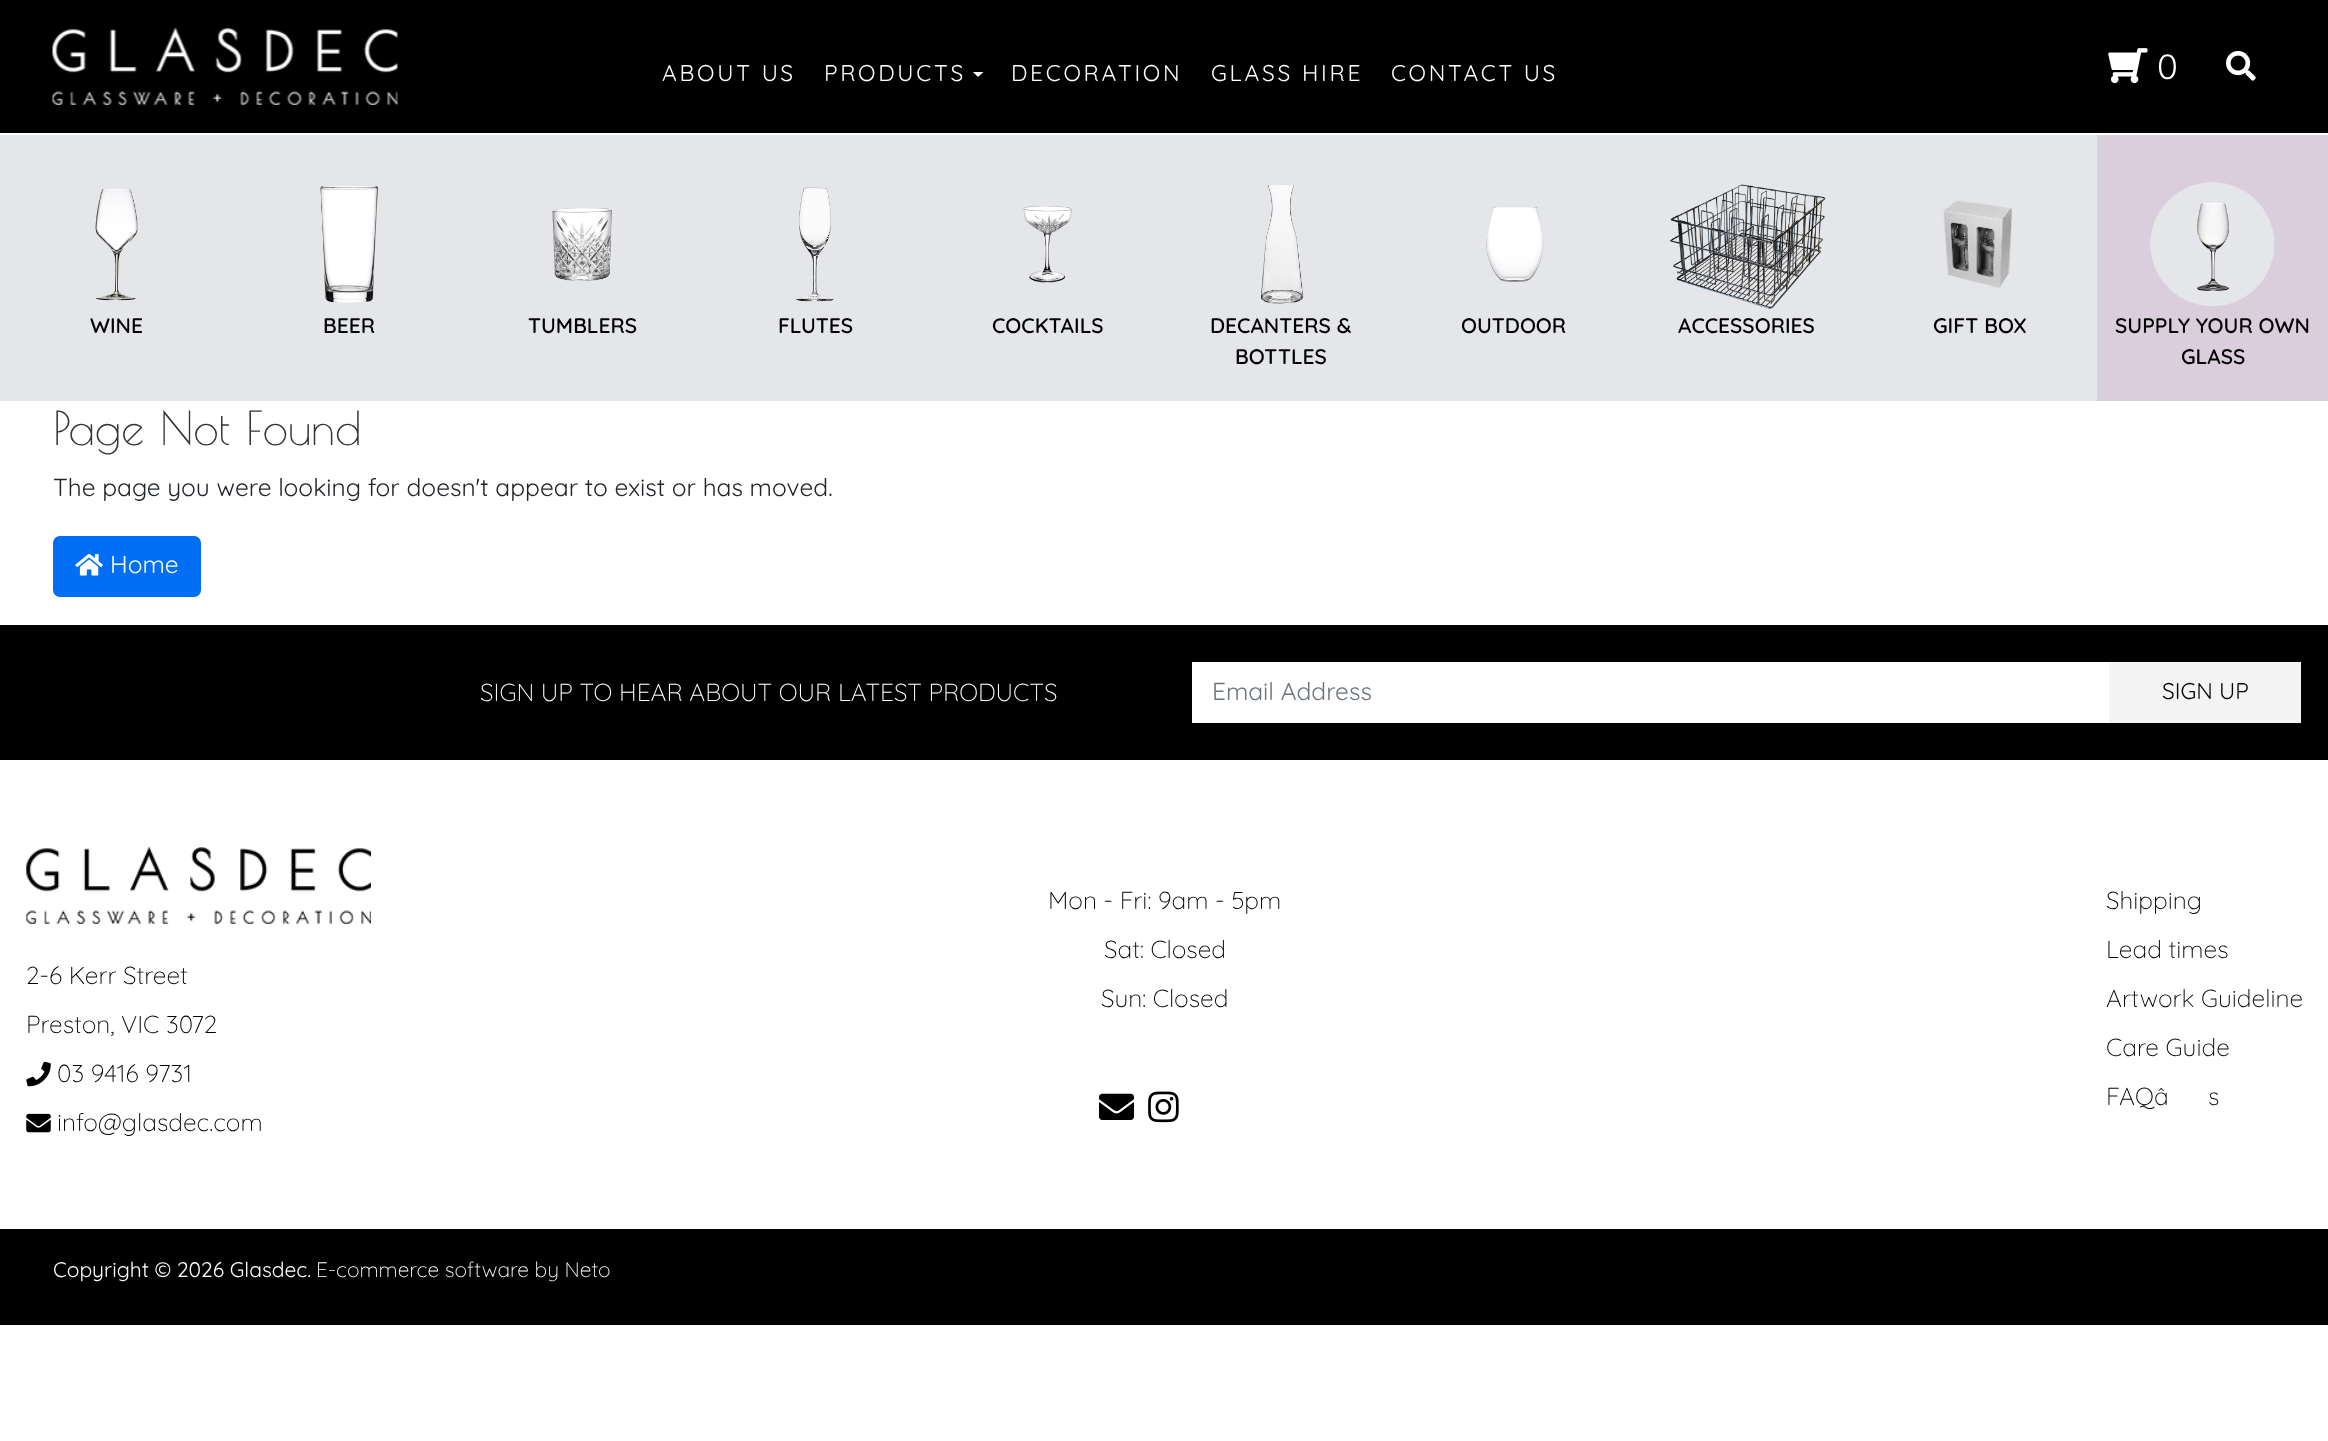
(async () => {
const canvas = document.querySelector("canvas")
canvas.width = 2328
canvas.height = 1441
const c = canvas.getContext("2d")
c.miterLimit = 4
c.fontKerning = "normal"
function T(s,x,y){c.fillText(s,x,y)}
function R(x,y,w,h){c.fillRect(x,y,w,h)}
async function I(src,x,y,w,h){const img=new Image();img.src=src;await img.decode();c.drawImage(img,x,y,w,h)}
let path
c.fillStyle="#fff"
R(0,0,2328,1441)
c.fillStyle="#000"
R(0,0,2328,133)
await I("1.png",52,28,346,77)
c.letterSpacing="2.75px"
c.font="22.75px Quicksand"
c.fillStyle="#fff"
T("ABOUT US",662,81)
T("PRODUCTS",824,81)
path = new Path2D("M973 72h10.5l-5.5 5z")
c.fill(path)
T("DECORATION",1011,81)
T("GLASS HIRE",1211,81)
T("CONTACT US",1391,81)
await I("2.png",2108,48,40,36)
c.letterSpacing="0px"
c.font="35px Quicksand"
T("0",2157,79)
await I("3.png",2226,51,30,30)
c.fillStyle="#e4e6e9"
R(0,135,2097,266)
await I("4.png",95,188,43,113)
c.font="600 21px Quicksand"
c.fillStyle="#000"
T("WINE",90,333)
await I("5.png",320,186,58,117)
T("BEER",323,333)
await I("6.png",552,208,60,73)
T("TUMBLERS",528,333)
await I("7.png",796,187,38,115)
T("FLUTES",778,333)
await I("8.png",1023,206,49,77)
T("COCKTAILS",992,333)
await I("9.png",1261,185,43,119)
T("DECANTERS &",1210,333)
T("BOTTLES",1235,364)
await I("10.png",1486,207,58,75)
T("OUTDOOR",1461,333)
await I("11.png",1670,184,156,125)
T("ACCESSORIES",1678,333)
await I("12.png",1943,200,69,88)
T("GIFT BOX",1933,333)
c.fillStyle="#dacedc"
R(2097,135,231,266)
await I("13.png",2150,182,124,124)
c.fillStyle="#000"
T("SUPPLY YOUR OWN",2115,333)
T("GLASS",2181,364)
c.font="46px Poiret One"
c.fillStyle="#333"
T("Page Not Found",53,445)
c.font="24.5px Quicksand"
c.fillStyle="#212529"
T("The page you were looking for doesn't appear to exist or has moved.",53,496)
c.fillStyle="#006ff5"
c.beginPath()
c.roundRect(54,537,146,59,6)
c.fill()
c.strokeStyle="#006ff5"
c.lineWidth=2
c.stroke()
await I("14.png",75,554,28,22)
c.fillStyle="#fff"
T("Home",110,573)
c.fillStyle="#000"
R(0,625,2328,135)
c.font="300 24.5px Quicksand"
c.fillStyle="#fff"
T("SIGN UP TO HEAR ABOUT OUR LATEST PRODUCTS",480,701)
R(1192,662,917,61)
c.font="24.5px Quicksand"
c.fillStyle="#6c757d"
T("Email Address",1212,700)
c.fillStyle="#f4f4f4"
R(2109,662,192,61)
c.font="22.75px Quicksand"
c.fillStyle="#000"
T("SIGN UP",2162,699)
c.font="300 24.5px Quicksand"
T("Mon - Fri: 9am - 5pm",1048,909)
T("Sat: Closed",1104,958)
T("Sun: Closed",1101,1007)
await I("15.png",1099,1093,35,27)
await I("16.png",1148,1091,31,32)
T("Shipping",2106,909)
T("Lead times",2106,958)
T("Artwork Guideline",2106,1007)
T("Care Guide",2106,1056)
T("FAQâ",2106,1105)
T("s",2208,1105)
await I("17.png",26,847,345,77)
T("2-6 Kerr Street",26,984)
T("Preston, VIC 3072",26,1033)
await I("18.png",26,1061,25,26)
T("03 9416 9731",57,1082)
await I("19.png",26,1113,25,20)
T("info@glasdec.com",57,1131)
R(0,1229,2328,96)
c.font="21px Quicksand"
c.fillStyle="#fff"
T("Copyright © 2026 Glasdec.",53,1277)
c.font="300 21px Quicksand"
T("E-commerce software by Neto",316,1277)
})()
